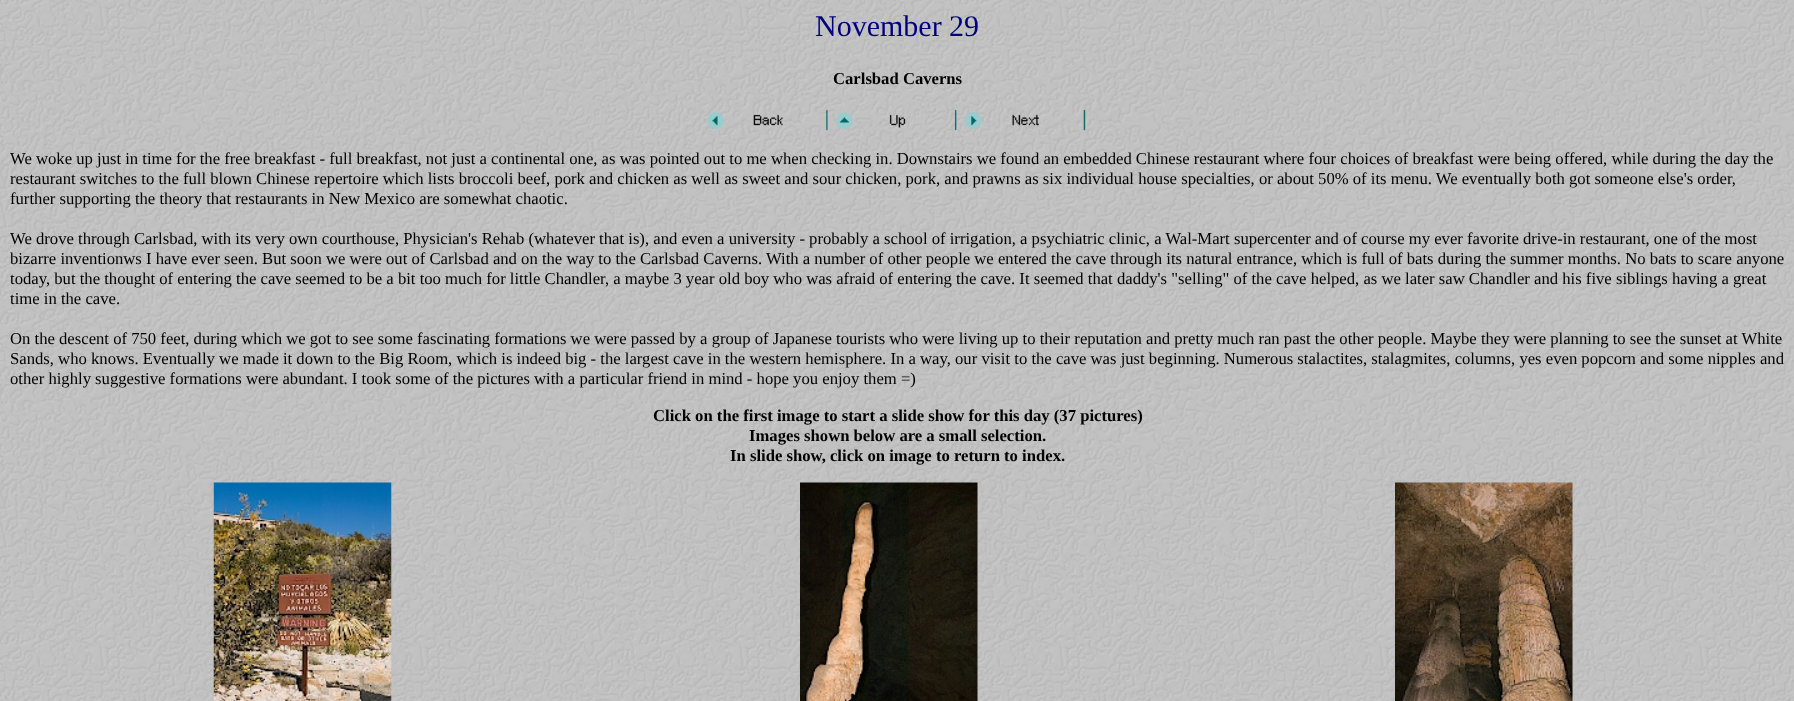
(async () => {
const canvas = document.querySelector("canvas")
canvas.width = 1794
canvas.height = 701
const c = canvas.getContext("2d")
c.miterLimit = 4
c.fontKerning = "normal"
function T(s,x,y){c.fillText(s,x,y)}
function R(x,y,w,h){c.fillRect(x,y,w,h)}
async function I(src,x,y,w,h){const img=new Image();img.src=src;await img.decode();c.drawImage(img,x,y,w,h)}
c.fillStyle="#fff"
R(0,0,1794,701)
await I("1.png",0,0,1794,701)
c.font="30px Liberation Serif"
c.fillStyle="#000080"
T("November 29",815,36)
c.font="bold 16.67px Liberation Serif"
c.fillStyle="#000"
T("Carlsbad Caverns",833,84)
await I("2.png",707,109,121,22)
await I("3.png",836,109,121,22)
await I("4.png",965,109,121,22)
c.font="16.67px Liberation Serif"
T("We woke up just in time for the free breakfast - full breakfast, not just a continental one, as was pointed out to me when checking in. Downstairs we found an embedded Chinese restaurant where four choices of breakfast were being offered, while during the day the",10,164)
T("restaurant switches to the full blown Chinese repertoire which lists broccoli beef, pork and chicken as well as sweet and sour chicken, pork, and prawns as six individual house specialties, or about 50% of its menu. We eventually both got someone else's order,",10,184)
T("further supporting the theory that restaurants in New Mexico are somewhat chaotic.",10,204)
T("We drove through Carlsbad, with its very own courthouse, Physician's Rehab (whatever that is), and even a university - probably a school of irrigation, a psychiatric clinic, a Wal-Mart supercenter and of course my ever favorite drive-in restaurant, one of the most",10,244)
T("bizarre inventionws I have ever seen. But soon we were out of Carlsbad and on the way to the Carlsbad Caverns. With a number of other people we entered the cave through its natural entrance, which is full of bats during the summer months. No bats to scare anyone",10,264)
T("today, but the thought of entering the cave seemed to be a bit too much for little Chandler, a maybe 3 year old boy who was afraid of entering the cave. It seemed that daddy's \"selling\" of the cave helped, as we later saw Chandler and his five siblings having a great",10,284)
T("time in the cave.",10,304)
T("On the descent of 750 feet, during which we got to see some fascinating formations we were passed by a group of Japanese tourists who were living up to their reputation and pretty much ran past the other people. Maybe they were planning to see the sunset at White",10,344)
T("Sands, who knows. Eventually we made it down to the Big Room, which is indeed big - the largest cave in the western hemisphere. In a way, our visit to the cave was just beginning. Numerous stalactites, stalagmites, columns, yes even popcorn and some nipples and",10,364)
T("other highly suggestive formations were abundant. I took some of the pictures with a particular friend in mind - hope you enjoy them =)",10,384)
c.font="bold 16.67px Liberation Serif"
T("Click on the first image to start a slide show for this day (37 pictures)",653,421)
T("Images shown below are a small selection.",749,441)
T("In slide show, click on image to return to index.",730,461)
await I("5.png",213,482,179,219)
await I("6.png",800,482,178,219)
await I("7.png",1395,482,178,219)
})()
